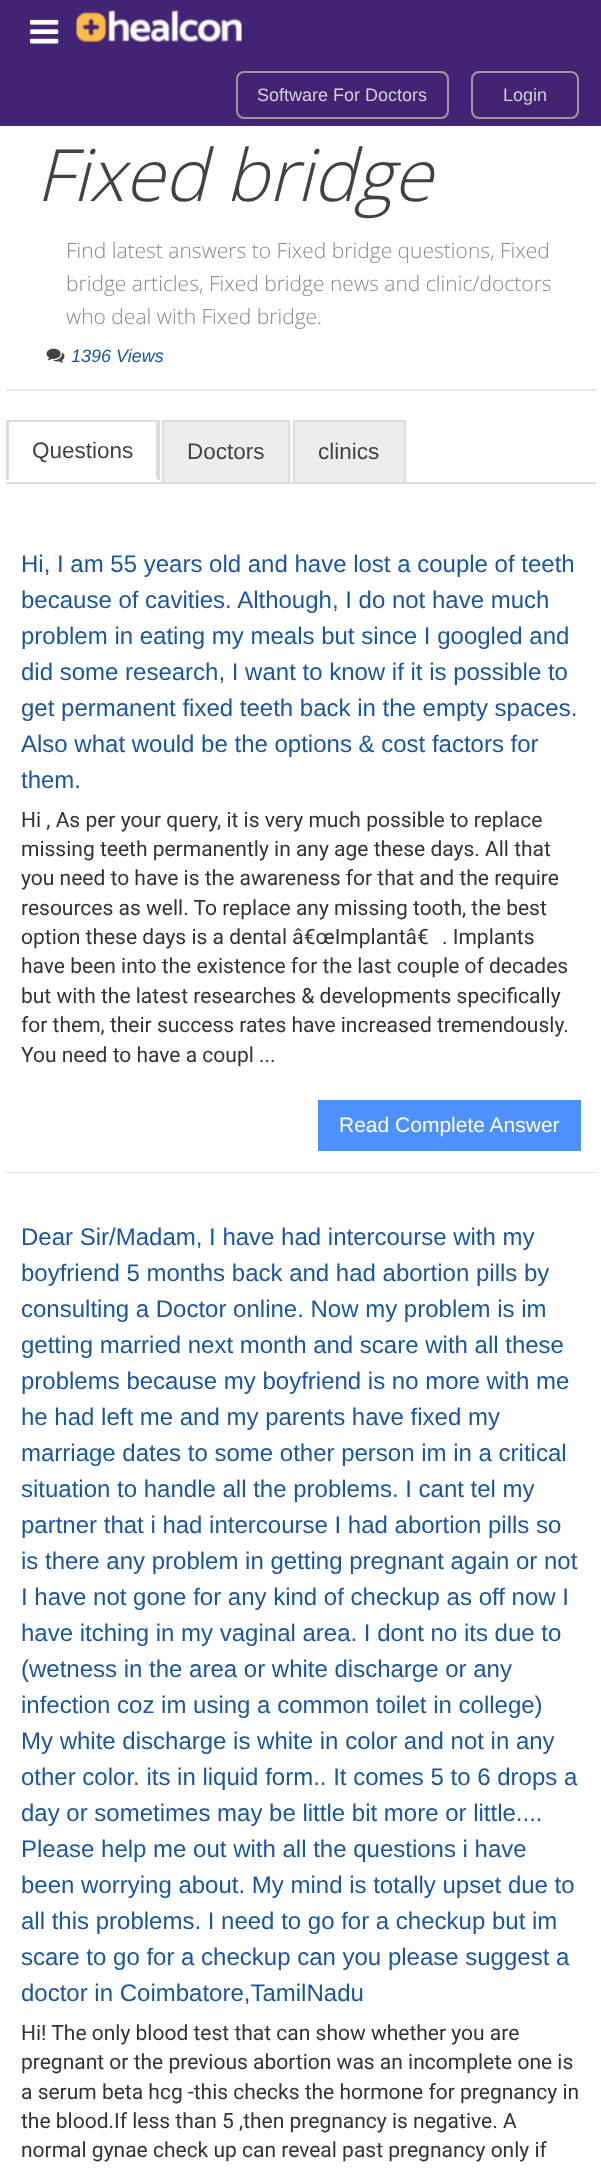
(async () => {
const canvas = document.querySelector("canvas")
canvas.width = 601
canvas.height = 2178
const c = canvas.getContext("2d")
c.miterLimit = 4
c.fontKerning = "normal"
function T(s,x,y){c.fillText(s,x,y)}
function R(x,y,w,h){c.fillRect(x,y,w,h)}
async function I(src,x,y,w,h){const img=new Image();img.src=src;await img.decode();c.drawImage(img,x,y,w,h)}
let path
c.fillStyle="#fff"
R(0,0,601,2178)
c.fillStyle="#432373"
R(0,0,601,126)
await I("1.png",30,19,29,25)
await I("2.png",76,10,166,32)
c.beginPath()
c.roundRect(237,72,211,46,7)
c.strokeStyle="#999"
c.lineWidth=2
c.stroke()
c.font="18px Liberation Sans"
c.fillStyle="#d1d1d1"
T("Software For Doctors",257,101)
c.beginPath()
c.roundRect(472,72,106,46,7)
c.stroke()
T("Login",503,101)
c.fillStyle="#e6e6e6"
R(6,389,590,2)
c.font="italic 300 72px Open Sans"
c.fillStyle="#424242"
T("Fixed bridge",36,201)
c.font="300 21px Open Sans"
c.fillStyle="#888"
T("Find latest answers to Fixed bridge questions, Fixed",66,258)
T("bridge articles, Fixed bridge news and clinic/doctors",66,291)
T("who deal with Fixed bridge.",66,324)
await I("3.png",46,348,19,15)
c.font="italic 18px Liberation Sans"
c.fillStyle="#1b559e"
T("1396 Views",71,362)
c.fillStyle="#ddd"
R(6,420,153,2)
R(158,420,2,60)
R(6,420,2,60)
path = new Path2D("M158 422v58l-2-2v-56z")
c.fill(path)
path = new Path2D("M8 480v-58h1v56z")
c.fill(path)
c.font="22.5px Liberation Sans"
c.fillStyle="#424242"
T("Questions",32,458)
c.fillStyle="#ededed"
R(164,422,124,60)
c.fillStyle="#ddd"
R(162,420,128,2)
R(288,420,2,62)
R(162,420,2,62)
c.fillStyle="#424242"
T("Doctors",187,459)
c.fillStyle="#ededed"
R(295,422,109,60)
c.fillStyle="#ddd"
R(293,420,112,2)
R(404,420,2,62)
R(293,420,2,62)
c.fillStyle="#424242"
T("clinics",318,459)
c.fillStyle="#ddd"
R(6,482,590,2)
c.font="24px Liberation Sans"
c.fillStyle="#1b559e"
T("Hi, I am 55 years old and have lost a couple of teeth",21,572)
T("because of cavities. Although, I do not have much",21,608)
T("problem in eating my meals but since I googled and",21,644)
T("did some research, I want to know if it is possible to",21,680)
T("get permanent fixed teeth back in the empty spaces.",21,716)
T("Also what would be the options & cost factors for",21,752)
T("them.",21,788)
c.font="21px Roboto"
c.fillStyle="#333"
T("Hi , As per your query, it is very much possible to replace",21,827)
T("missing teeth permanently in any age these days. All that",21,856)
T("you need to have is the awareness for that and the require",21,885)
T("resources as well. To replace any missing tooth, the best",21,915)
T("option these days is a dental â€œImplantâ€",21,944)
T(". Implants",442,944)
T("have been into the existence for the last couple of decades",21,973)
T("but with the latest researches & developments specifically",21,1003)
T("for them, their success rates have increased tremendously.",21,1032)
T("You need to have a coupl ...",21,1062)
c.fillStyle="#4d90fe"
R(318,1100,263,51)
c.font="21px Liberation Sans"
c.fillStyle="#fff"
T("Read Complete Answer",339,1132)
c.fillStyle="#e0dfdf"
R(6,1172,590,1)
c.font="24px Liberation Sans"
c.fillStyle="#1b559e"
T("Dear Sir/Madam, I have had intercourse with my",21,1245)
T("boyfriend 5 months back and had abortion pills by",21,1281)
T("consulting a Doctor online. Now my problem is im",21,1317)
T("getting married next month and scare with all these",21,1353)
T("problems because my boyfriend is no more with me",21,1389)
T("he had left me and my parents have fixed my",21,1425)
T("marriage dates to some other person im in a critical",21,1461)
T("situation to handle all the problems. I cant tel my",21,1497)
T("partner that i had intercourse I had abortion pills so",21,1533)
T("is there any problem in getting pregnant again or not",21,1569)
T("I have not gone for any kind of checkup as off now I",21,1605)
T("have itching in my vaginal area. I dont no its due to",21,1641)
T("(wetness in the area or white discharge or any",21,1677)
T("infection coz im using a common toilet in college)",21,1713)
T("My white discharge is white in color and not in any",21,1749)
T("other color. its in liquid form.. It comes 5 to 6 drops a",21,1785)
T("day or sometimes may be little bit more or little....",21,1821)
T("Please help me out with all the questions i have",21,1857)
T("been worrying about. My mind is totally upset due to",21,1893)
T("all this problems. I need to go for a checkup but im",21,1929)
T("scare to go for a checkup can you please suggest a",21,1965)
T("doctor in Coimbatore,TamilNadu",21,2001)
c.font="21px Roboto"
c.fillStyle="#333"
T("Hi! The only blood test that can show whether you are",21,2040)
T("pregnant or the previous abortion was an incomplete one is",21,2069)
T("a serum beta hcg -this checks the hormone for pregnancy in",21,2099)
T("the blood.If less than 5 ,then pregnancy is negative. A",21,2128)
T("normal gynae check up can reveal past pregnancy only if",21,2157)
})()
